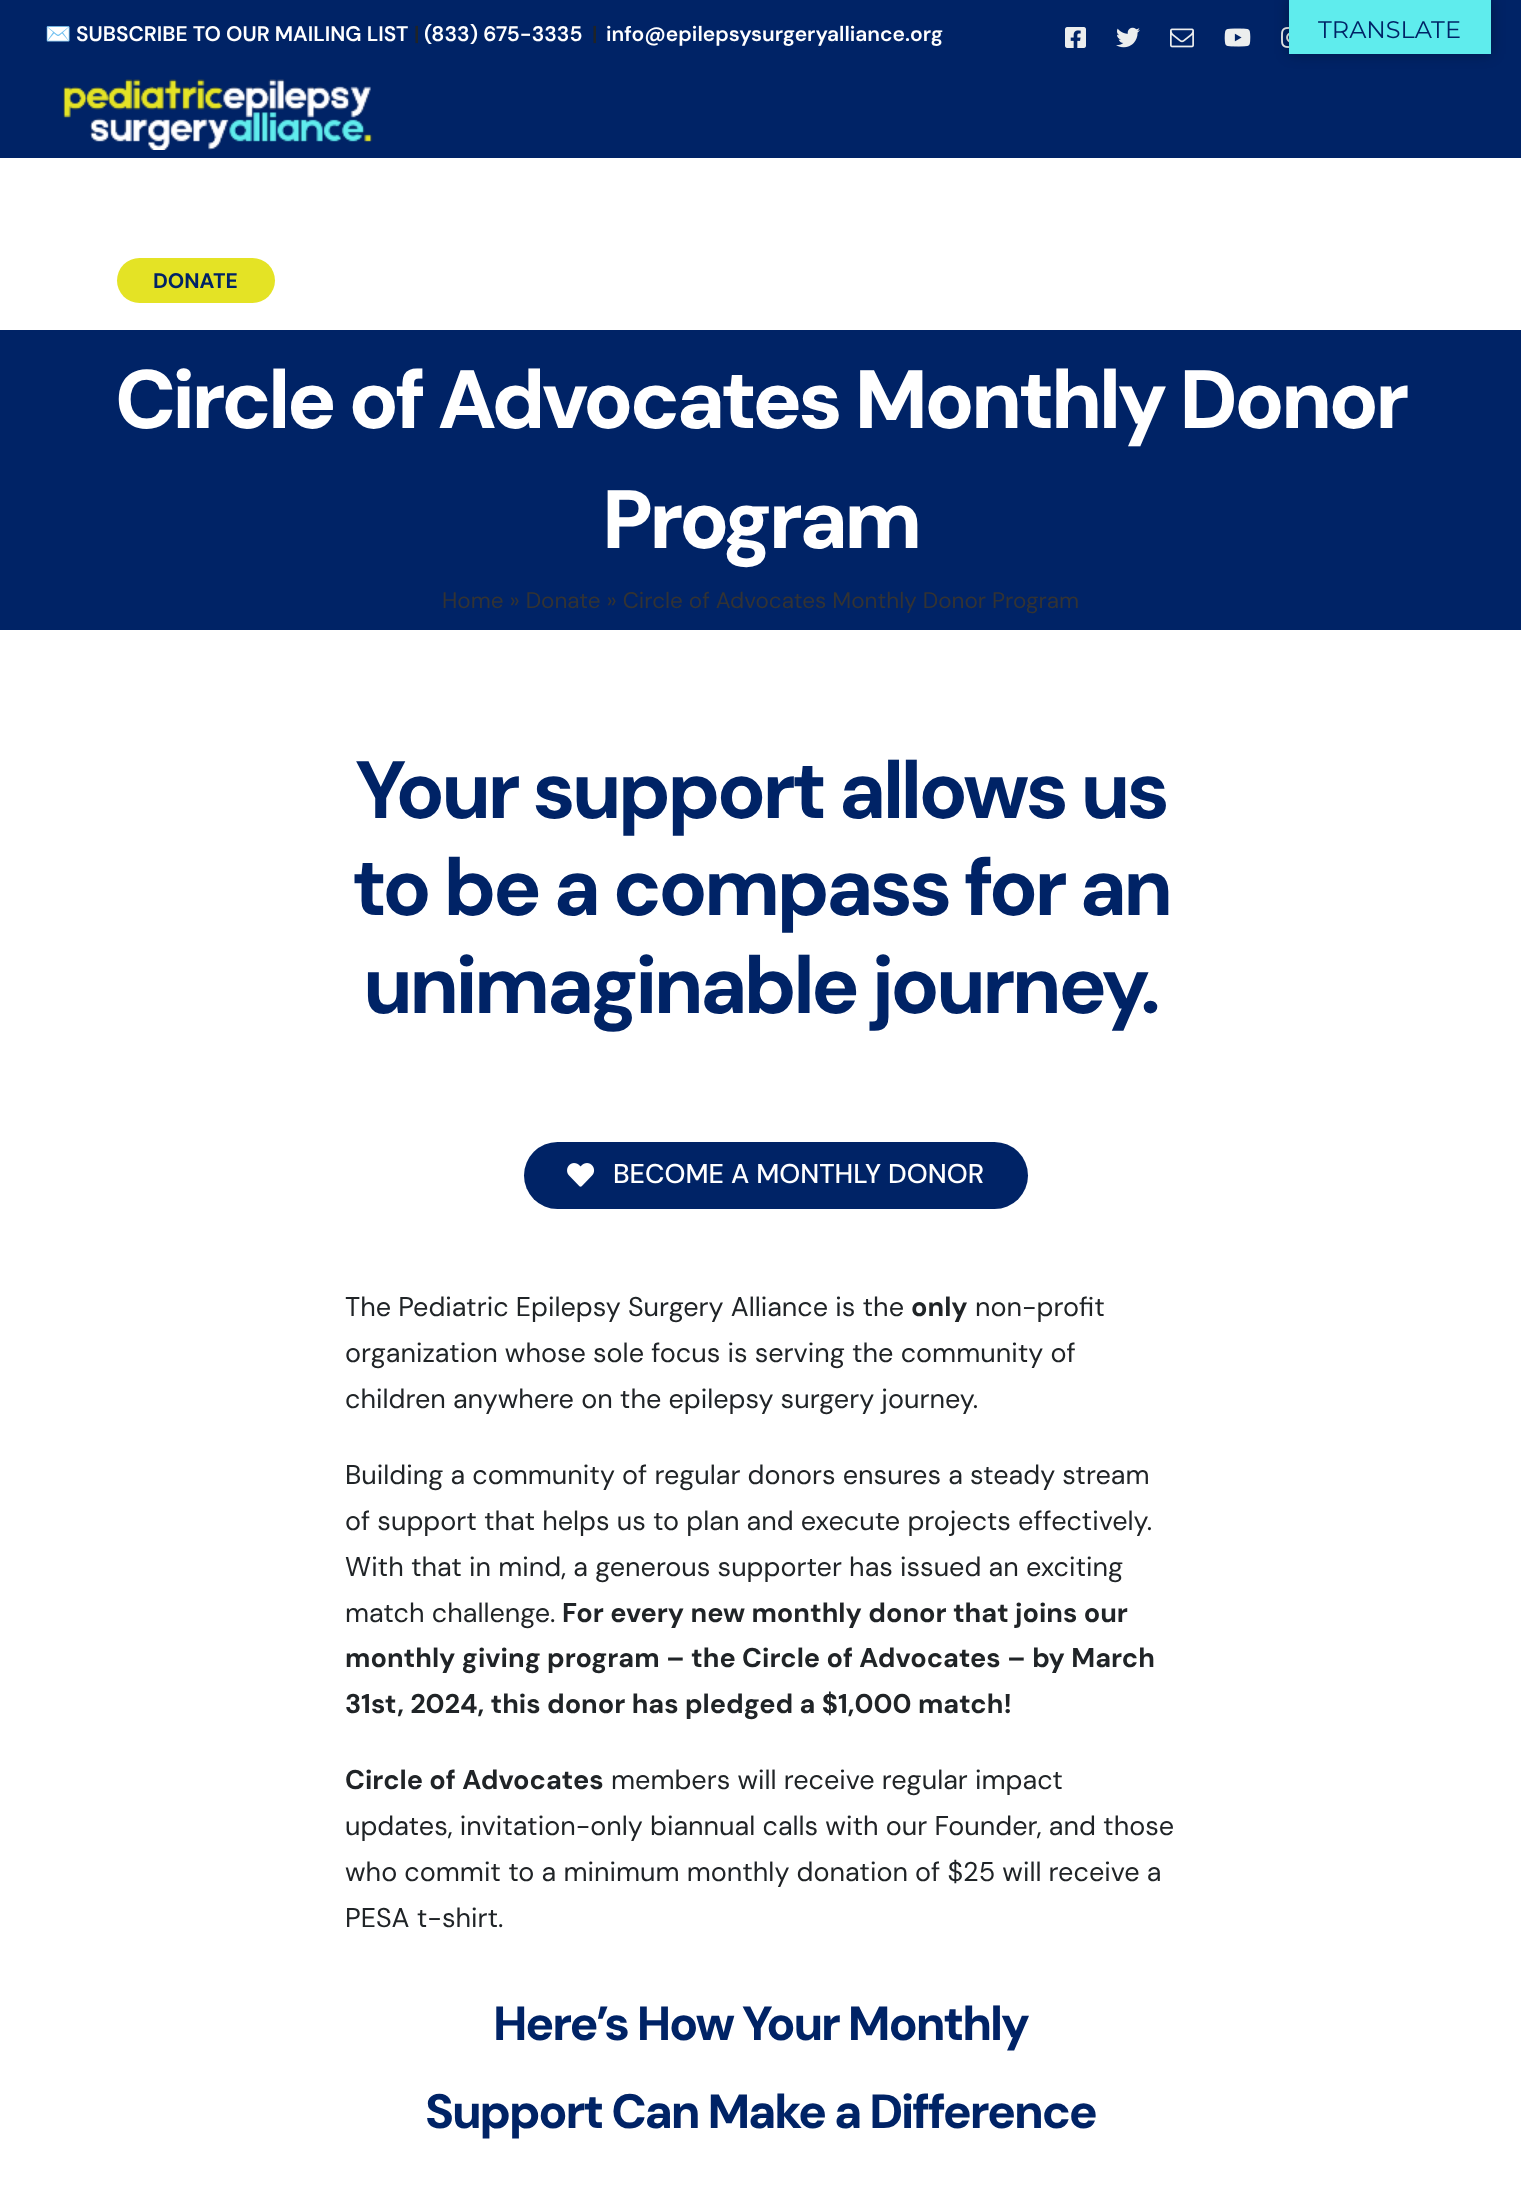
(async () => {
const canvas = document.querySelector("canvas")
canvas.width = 1521
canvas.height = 2189
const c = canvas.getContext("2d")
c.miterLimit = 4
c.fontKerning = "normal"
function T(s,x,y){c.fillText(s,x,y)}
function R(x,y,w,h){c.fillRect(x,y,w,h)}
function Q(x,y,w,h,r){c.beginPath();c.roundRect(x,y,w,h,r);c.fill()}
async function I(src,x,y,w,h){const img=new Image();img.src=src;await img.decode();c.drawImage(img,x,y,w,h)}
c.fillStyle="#fff"
R(0,0,1521,2189)
c.fillStyle="#002366"
R(0,0,1521,158)
await I("5.png",1281,27,8,21)
c.fillStyle="#0000004d"
c.filter="blur(7px)"
c.beginPath()
c.rect(1289,0,202,54)
c.fill()
c.filter="none"
c.fillStyle="#5feced"
R(1289,0,202,54)
c.font="24px Montserrat"
c.fillStyle="#002366"
T("TRANSLATE",1318,38)
c.font="bold 21px Noto Color Emoji"
c.fillStyle="#fff"
T("✉️",45,41)
c.font="600 21px DM Sans"
T("SUBSCRIBE TO OUR MAILING LIST",76,41)
c.fillStyle="#202427"
T("|",414,41)
c.fillStyle="#fff"
T("(833) 675-3335",424,41)
c.fillStyle="#202427"
T("|",592,41)
c.fillStyle="#fff"
T("info@epilepsysurgeryalliance.org",606,41)
await I("1.png",1065,27,21,21)
await I("2.png",1116,27,24,21)
await I("3.png",1170,28,24,20)
await I("4.png",1224,28,27,19)
await I("6.png",63,79,310,71)
c.fillStyle="#e4e325"
Q(117,258,158,45,22.5)
c.font="bold 21px DM Sans"
c.fillStyle="#002366"
T("DONATE",153,288)
R(0,330,1521,300)
c.letterSpacing="-3.7px"
c.font="800 82.5px DM Sans"
c.fillStyle="#fff"
T("Circle of Advocates Monthly Donor",115,428)
T("Program",602,548)
c.letterSpacing="0px"
c.font="22.5px DM Sans"
c.fillStyle="#333"
T("Home » Donate » Circle of Advocates Monthly Donor Program",442,608)
c.letterSpacing="-3.65px"
c.font="bold 81px DM Sans"
c.fillStyle="#002366"
T("Your support allows us",355,818)
T("to be a compass for an",352,915)
T("unimaginable journey.",363,1013)
Q(524,1142,504,67,33.5)
await I("7.png",567,1163,28,24)
c.letterSpacing="0px"
c.font="500 27px DM Sans"
c.fillStyle="#fff"
T("BECOME A MONTHLY DONOR",613,1183)
c.font="27px DM Sans"
c.fillStyle="#202427"
T("The Pediatric Epilepsy Surgery Alliance is the",345,1316)
c.font="bold 27px DM Sans"
T("only",911,1316)
c.font="27px DM Sans"
T("non-profit",975,1316)
T("organization whose sole focus is serving the community of",345,1362)
T("children anywhere on the epilepsy surgery journey.",345,1408)
T("Building a community of regular donors ensures a steady stream",345,1484)
T("of support that helps us to plan and execute projects effectively.",345,1530)
T("With that in mind, a generous supporter has issued an exciting",345,1576)
T("match challenge.",345,1622)
c.font="bold 27px DM Sans"
T("For every new monthly donor that joins our",562,1622)
T("monthly giving program – the Circle of Advocates – by March",345,1667)
T("31st, 2024, this donor has pledged a $1,000 match!",345,1713)
T("Circle of Advocates",345,1789)
c.font="27px DM Sans"
T("members will receive regular impact",611,1789)
T("updates, invitation-only biannual calls with our Founder, and those",345,1835)
T("who commit to a minimum monthly donation of $25 will receive a",345,1881)
T("PESA t-shirt.",345,1927)
c.letterSpacing="-2.15px"
c.font="800 48px DM Sans"
c.fillStyle="#002366"
T("Here’s How Your Monthly",493,2040)
T("Support Can Make a Difference",425,2128)
})()
